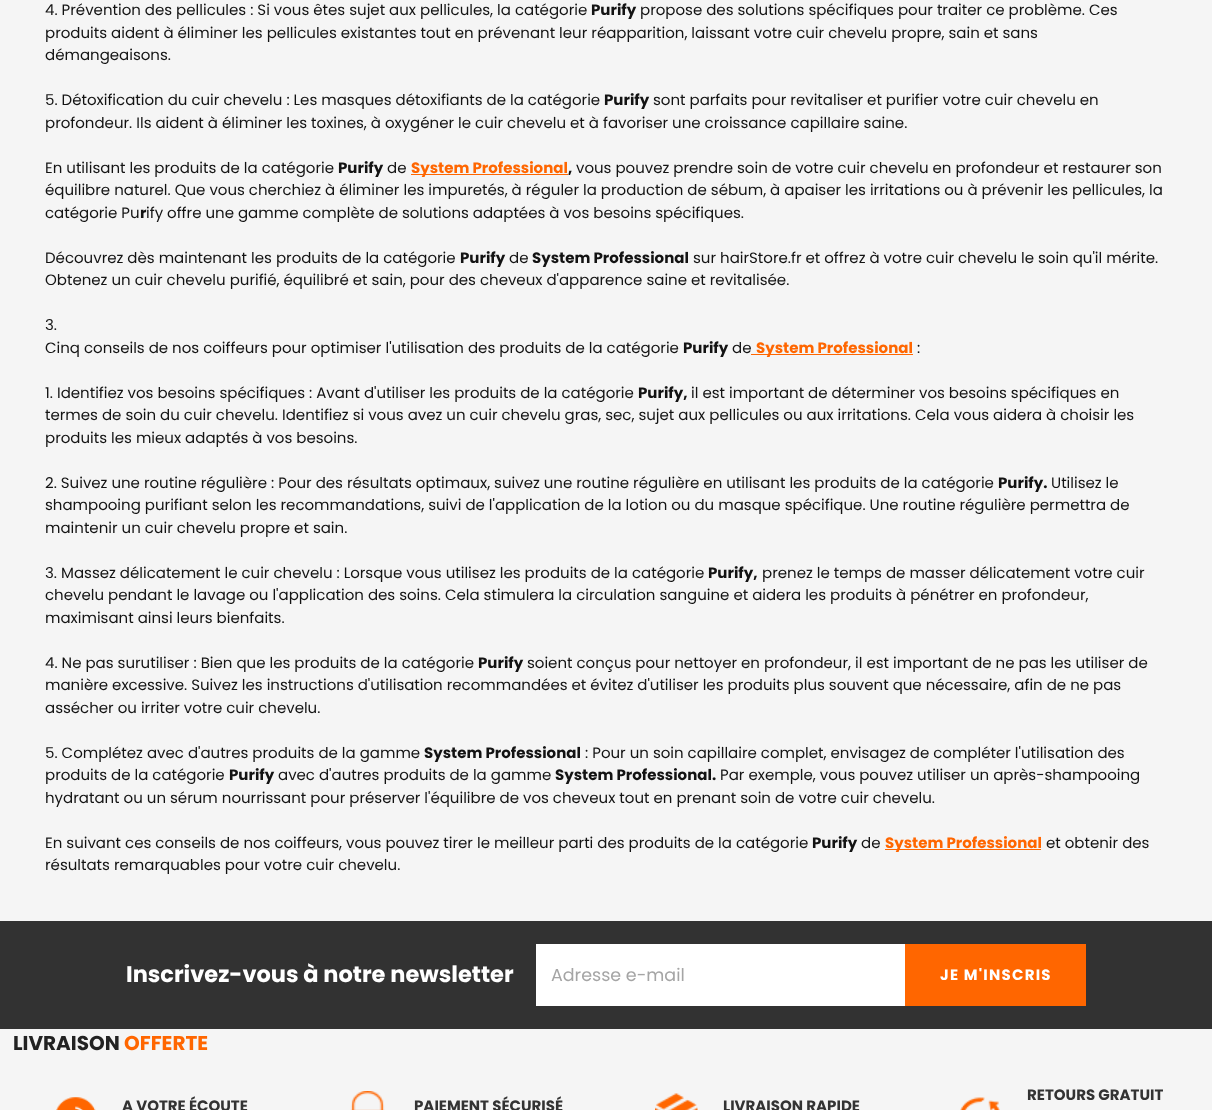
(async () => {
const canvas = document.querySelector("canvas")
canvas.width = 1212
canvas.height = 1110
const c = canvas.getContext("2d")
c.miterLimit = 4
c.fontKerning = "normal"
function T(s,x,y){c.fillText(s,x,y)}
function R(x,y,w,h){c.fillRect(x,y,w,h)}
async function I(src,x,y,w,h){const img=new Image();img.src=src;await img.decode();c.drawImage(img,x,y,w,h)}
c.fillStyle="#f5f5f5"
R(0,0,1212,1110)
c.font="15px Poppins"
c.fillStyle="#131313"
T("4. Prévention des pellicules : Si vous êtes sujet aux pellicules, la catégorie",45,15)
c.font="bold 15px Poppins"
T("Purify",591,15)
c.font="15px Poppins"
T("propose des solutions spécifiques pour traiter ce problème. Ces",640,15)
T("produits aident à éliminer les pellicules existantes tout en prévenant leur réapparition, laissant votre cuir chevelu propre, sain et sans",45,38)
T("démangeaisons.",45,60)
T("5. Détoxification du cuir chevelu : Les masques détoxifiants de la catégorie",45,105)
c.font="bold 15px Poppins"
T("Purify",604,105)
c.font="15px Poppins"
T("sont parfaits pour revitaliser et purifier votre cuir chevelu en",653,105)
T("profondeur. Ils aident à éliminer les toxines, à oxygéner le cuir chevelu et à favoriser une croissance capillaire saine.",45,128)
T("En utilisant les produits de la catégorie",45,173)
c.font="bold 15px Poppins"
T("Purify",338,173)
c.font="15px Poppins"
T("de",387,173)
c.fillStyle="#f60"
R(411,174,157,1)
c.font="bold 15px Poppins"
T("System Professional",411,173)
c.fillStyle="#131313"
T(",",568,173)
c.font="15px Poppins"
T("vous pouvez prendre soin de votre cuir chevelu en profondeur et restaurer son",576,173)
T("équilibre naturel. Que vous cherchiez à éliminer les impuretés, à réguler la production de sébum, à apaiser les irritations ou à prévenir les pellicules, la",45,195)
T("catégorie Pu",45,218)
c.font="bold 15px Poppins"
T("r",140,218)
c.font="15px Poppins"
T("ify offre une gamme complète de solutions adaptées à vos besoins spécifiques.",146,218)
T("Découvrez dès maintenant les produits de la catégorie",45,263)
c.font="bold 15px Poppins"
T("Purify",460,263)
c.font="15px Poppins"
T("de",509,263)
c.font="bold 15px Poppins"
T("System Professional",532,263)
c.font="15px Poppins"
T("sur hairStore.fr et offrez à votre cuir chevelu le soin qu'il mérite.",693,263)
T("Obtenez un cuir chevelu purifié, équilibré et sain, pour des cheveux d'apparence saine et revitalisée.",45,285)
T("3.",45,330)
T("Cinq conseils de nos coiffeurs pour optimiser l'utilisation des produits de la catégorie",45,353)
c.font="bold 15px Poppins"
T("Purify",683,353)
c.font="15px Poppins"
T("de",732,353)
c.fillStyle="#f60"
R(751,354,162,1)
c.font="bold 15px Poppins"
T("System Professional",756,353)
c.font="15px Poppins"
c.fillStyle="#131313"
T(":",917,353)
T("1. Identifiez vos besoins spécifiques : Avant d'utiliser les produits de la catégorie",45,398)
c.font="bold 15px Poppins"
T("Purify,",638,398)
c.font="15px Poppins"
T("il est important de déterminer vos besoins spécifiques en",691,398)
T("termes de soin du cuir chevelu. Identifiez si vous avez un cuir chevelu gras, sec, sujet aux pellicules ou aux irritations. Cela vous aidera à choisir les",45,420)
T("produits les mieux adaptés à vos besoins.",45,443)
T("2. Suivez une routine régulière : Pour des résultats optimaux, suivez une routine régulière en utilisant les produits de la catégorie",45,488)
c.font="bold 15px Poppins"
T("Purify.",998,488)
c.font="15px Poppins"
T("Utilisez le",1051,488)
T("shampooing purifiant selon les recommandations, suivi de l'application de la lotion ou du masque spécifique. Une routine régulière permettra de",45,510)
T("maintenir un cuir chevelu propre et sain.",45,533)
T("3. Massez délicatement le cuir chevelu : Lorsque vous utilisez les produits de la catégorie",45,578)
c.font="bold 15px Poppins"
T("Purify,",708,578)
c.font="15px Poppins"
T("prenez le temps de masser délicatement votre cuir",762,578)
T("chevelu pendant le lavage ou l'application des soins. Cela stimulera la circulation sanguine et aidera les produits à pénétrer en profondeur,",45,600)
T("maximisant ainsi leurs bienfaits.",45,623)
T("4. Ne pas surutiliser : Bien que les produits de la catégorie",45,668)
c.font="bold 15px Poppins"
T("Purify",478,668)
c.font="15px Poppins"
T("soient conçus pour nettoyer en profondeur, il est important de ne pas les utiliser de",527,668)
T("manière excessive. Suivez les instructions d'utilisation recommandées et évitez d'utiliser les produits plus souvent que nécessaire, afin de ne pas",45,690)
T("assécher ou irriter votre cuir chevelu.",45,713)
T("5. Complétez avec d'autres produits de la gamme",45,758)
c.font="bold 15px Poppins"
T("System Professional",424,758)
c.font="15px Poppins"
T(": Pour un soin capillaire complet, envisagez de compléter l'utilisation des",585,758)
T("produits de la catégorie",45,780)
c.font="bold 15px Poppins"
T("Purify",229,780)
c.font="15px Poppins"
T("avec d'autres produits de la gamme",278,780)
c.font="bold 15px Poppins"
T("System Professional.",555,780)
c.font="15px Poppins"
T("Par exemple, vous pouvez utiliser un après-shampooing",720,780)
T("hydratant ou un sérum nourrissant pour préserver l'équilibre de vos cheveux tout en prenant soin de votre cuir chevelu.",45,803)
T("En suivant ces conseils de nos coiffeurs, vous pouvez tirer le meilleur parti des produits de la catégorie",45,848)
c.font="bold 15px Poppins"
T("Purify",812,848)
c.font="15px Poppins"
T("de",861,848)
c.fillStyle="#f60"
R(885,849,156,1)
c.font="bold 15px Poppins"
T("System Professional",885,848)
c.font="15px Poppins"
c.fillStyle="#131313"
T("et obtenir des",1046,848)
T("résultats remarquables pour votre cuir chevelu.",45,870)
c.fillStyle="#323232"
R(0,921,1212,108)
c.font="bold 22.5px Poppins"
c.fillStyle="#fff"
T("Inscrivez-vous à notre newsletter",126,982)
R(536,944,369,62)
c.font="17.5px Poppins"
c.fillStyle="#a5a5a5"
T("Adresse e-mail",551,981)
c.fillStyle="#f60"
R(905,944,181,62)
c.letterSpacing="1.25px"
c.font="bold 15px Poppins"
c.fillStyle="#fff"
T("JE M'INSCRIS",940,980)
c.letterSpacing="0px"
c.font="bold 20px Poppins"
c.fillStyle="#222"
T("LIVRAISON",13,1050)
c.fillStyle="#f60"
T("OFFERTE",124,1050)
await I("1.png",56,1097,40,13)
c.font="bold 15px Poppins"
c.fillStyle="#333"
T("A VOTRE ÉCOUTE",122,1111)
await I("2.png",350,1091,35,19)
T("PAIEMENT SÉCURISÉ",414,1111)
await I("3.png",655,1093,43,17)
T("LIVRAISON RAPIDE",723,1111)
T("RETOURS GRATUIT",1027,1100)
await I("4.png",960,1097,40,13)
})()
